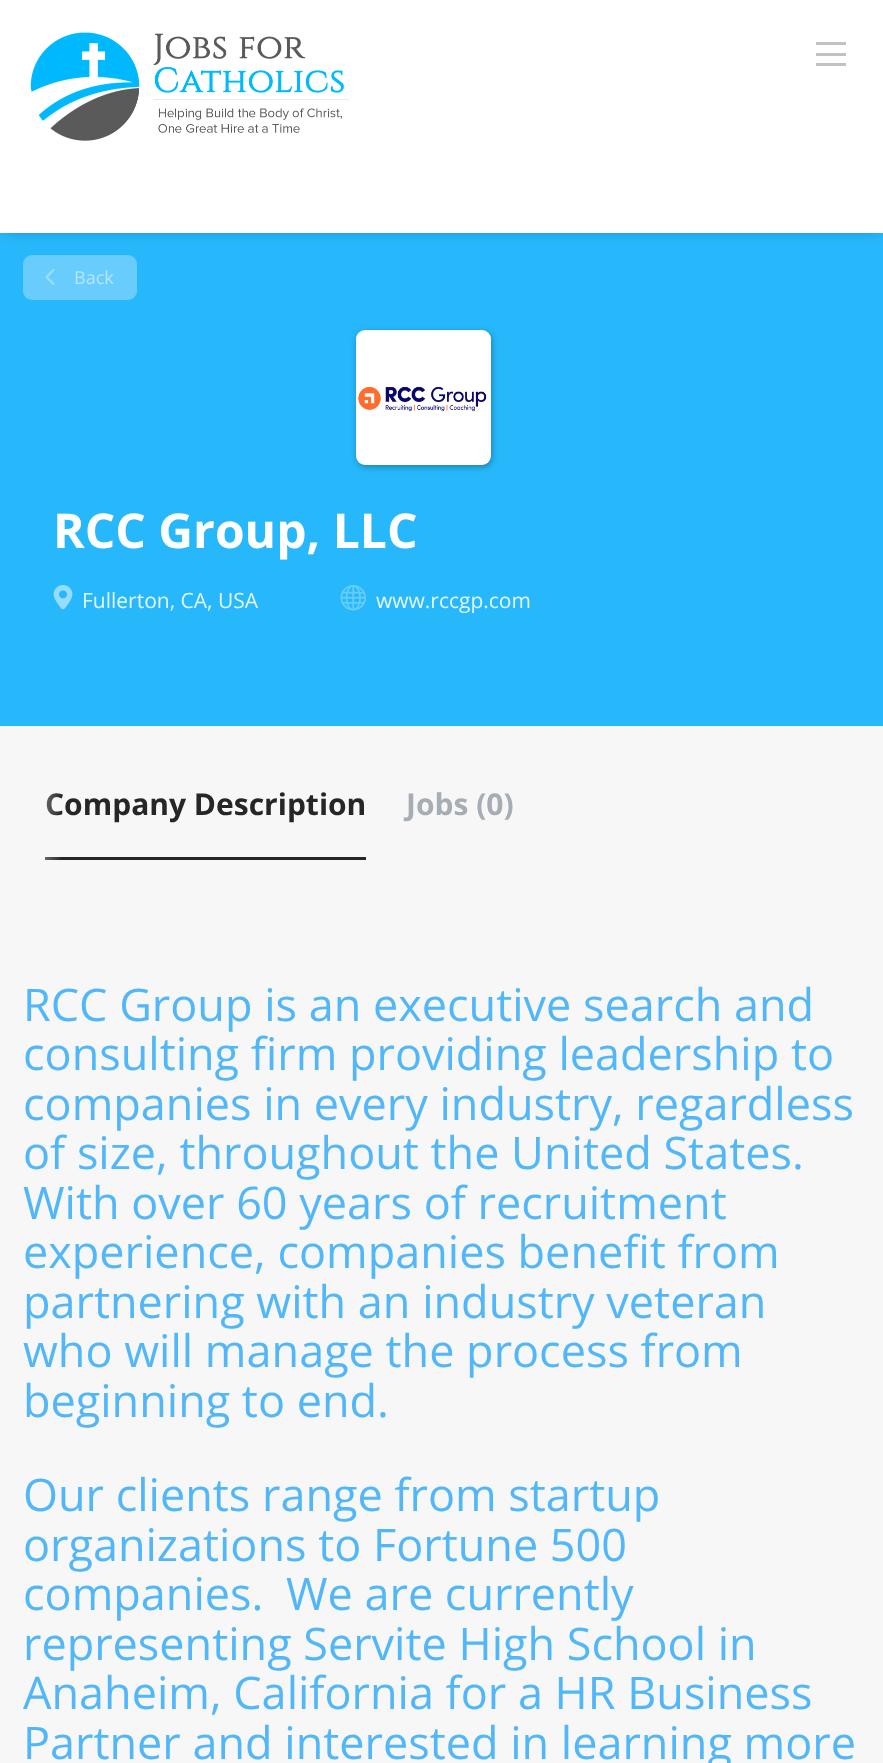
(async () => {
const canvas = document.querySelector("canvas")
canvas.width = 883
canvas.height = 1763
const c = canvas.getContext("2d")
c.miterLimit = 4
c.fontKerning = "normal"
function T(s,x,y){c.fillText(s,x,y)}
function R(x,y,w,h){c.fillRect(x,y,w,h)}
function Q(x,y,w,h,r){c.beginPath();c.roundRect(x,y,w,h,r);c.fill()}
async function I(src,x,y,w,h){const img=new Image();img.src=src;await img.decode();c.drawImage(img,x,y,w,h)}
let gradient, path
c.fillStyle="#f7f7f7"
R(0,0,883,1763)
c.fillStyle="#27b8fc"
R(0,233,883,493)
c.fillStyle="#0000004d"
c.filter="blur(7px)"
c.beginPath()
c.rect(6,9,872,221)
c.fill()
c.filter="none"
c.fillStyle="#fff"
R(0,0,883,233)
await I("1.png",30,32,319,109)
c.fillStyle="#c2c2c2"
R(816,53,30,3)
R(816,42,30,3)
R(816,63,30,3)
c.fillStyle="#68cdfd"
Q(23,255,114,45,9)
path = new Path2D("M53.5 270l-7 7l7 7")
c.strokeStyle="#9fdffe"
c.lineWidth=2.1
c.lineCap="round"
c.lineJoin="round"
c.stroke(path)
c.font="18px Open Sans"
c.fillStyle="#b4e6fe"
T("Back",74,284)
c.fillStyle="#0000004d"
c.filter="blur(3px)"
c.beginPath()
c.roundRect(357,332,135,135,9)
c.fill()
c.filter="none"
c.fillStyle="#fff"
Q(356,330,135,135,9)
await I("2.png",358,386,129,26)
c.font="bold 48px Open Sans"
T("RCC Group, LLC",53,548)
await I("3.png",53,585,20,25)
c.font="21px Open Sans"
c.fillStyle="#e5f6ff"
T("Fullerton, CA, USA",82,608)
await I("4.png",340,585,26,26)
T("www.rccgp.com",376,608)
c.fillStyle="#262626"
R(45,857,321,3)
c.font="bold 30px Open Sans"
T("Company Description",45,815)
c.fillStyle="#a6adb4"
T("Jobs (0)",406,815)
gradient = c.createLinearGradient(7.5,828,98,828)
gradient.addColorStop(0,"#f7f7f7")
gradient.addColorStop(.6,"#f7f7f700")
gradient.addColorStop(1,"#f7f7f700")
c.fillStyle = gradient
R(45,793,16,67)
c.font="45px Open Sans"
c.fillStyle="#52b7f9"
T("RCC Group is an executive search and",23,1021)
T("consulting firm providing leadership to",23,1070)
T("companies in every industry, regardless",23,1120)
T("of size, throughout the United States.",23,1169)
T("With over 60 years of recruitment",23,1219)
T("experience, companies benefit from",23,1268)
T("partnering with an industry veteran",23,1318)
T("who will manage the process from",23,1367)
T("beginning to end.",23,1417)
T("Our clients range from startup",23,1511)
T("organizations to Fortune 500",23,1561)
T("companies.",23,1610)
T("We are currently",286,1610)
T("representing Servite High School in",23,1660)
T("Anaheim, California for a HR Business",23,1709)
T("Partner and interested in learning more",23,1759)
})()
